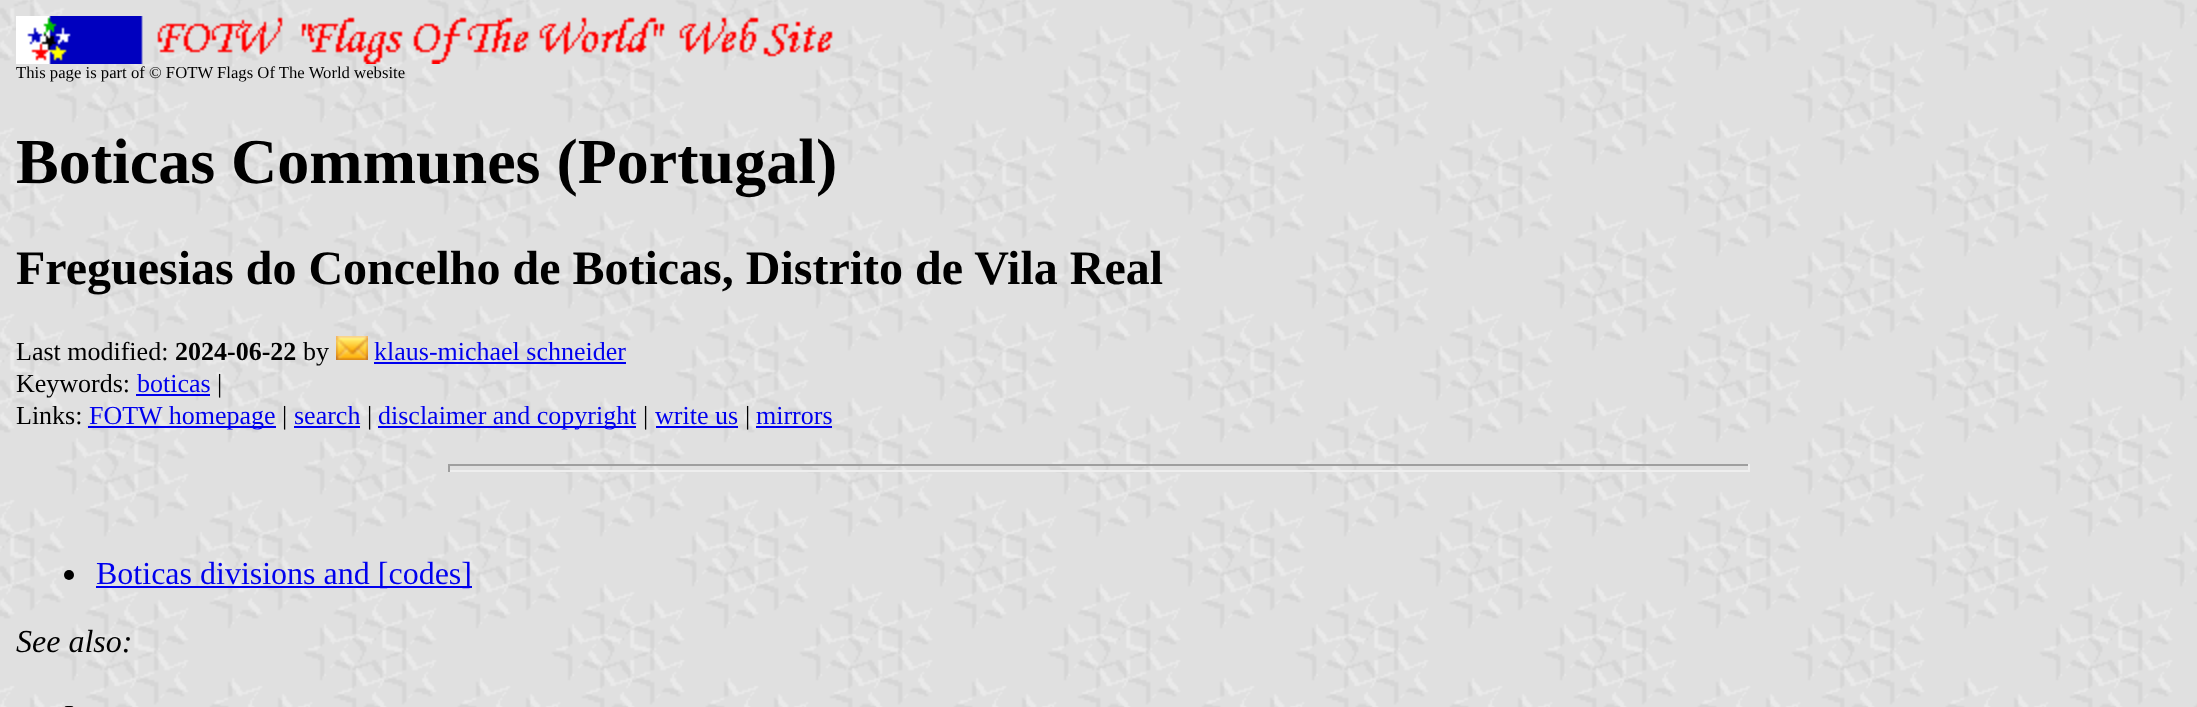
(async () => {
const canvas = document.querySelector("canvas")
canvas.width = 2197
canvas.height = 707
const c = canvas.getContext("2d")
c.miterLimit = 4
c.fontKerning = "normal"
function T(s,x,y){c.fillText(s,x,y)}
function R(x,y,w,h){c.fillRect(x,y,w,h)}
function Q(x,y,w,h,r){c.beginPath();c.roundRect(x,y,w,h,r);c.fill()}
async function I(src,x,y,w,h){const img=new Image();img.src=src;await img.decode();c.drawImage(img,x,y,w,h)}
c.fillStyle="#fff"
R(0,0,2197,707)
await I("1.png",0,0,2197,707)
await I("2.png",16,16,817,48)
c.font="16.7px Liberation Serif"
c.fillStyle="#000"
T("This page is part of © FOTW Flags Of The World website",16,78)
c.font="bold 64px Liberation Serif"
T("Boticas Communes (Portugal)",16,183)
c.font="bold 48px Liberation Serif"
T("Freguesias do Concelho de Boticas, Distrito de Vila Real",16,284)
c.font="26px Liberation Serif"
T("Last modified:",16,360)
c.font="bold 26px Liberation Serif"
T("2024-06-22",175,360)
c.font="26px Liberation Serif"
T("by",303,360)
await I("3.png",336,336,32,24)
c.fillStyle="#00e"
T("klaus-michael schneider",374,360)
R(374,362,252,2)
c.fillStyle="#000"
T("Keywords:",16,392)
c.fillStyle="#00e"
T("boticas",137,392)
R(136,394,74,2)
c.fillStyle="#000"
T("|",217,392)
T("Links:",16,424)
c.fillStyle="#00e"
R(88,426,188,2)
T("FOTW homepage",89,424)
c.fillStyle="#000"
T("|",282,424)
c.fillStyle="#00e"
T("search",294,424)
R(294,426,66,2)
c.fillStyle="#000"
T("|",367,424)
c.fillStyle="#00e"
R(378,426,258,2)
T("disclaimer and copyright",378,424)
c.fillStyle="#000"
T("|",643,424)
c.fillStyle="#00e"
T("write us",655,424)
R(656,426,82,2)
c.fillStyle="#000"
T("|",745,424)
c.fillStyle="#00e"
T("mirrors",756,424)
R(756,426,76,2)
c.fillStyle="#9f9f9f"
R(448,464,1302,2)
c.fillStyle="#eee"
R(1748,464,2,8)
R(448,470,1302,2)
c.fillStyle="#9f9f9f"
R(448,464,2,8)
c.fillStyle="#000"
c.beginPath()
c.arc(69,575,5,0,7)
c.fill()
c.fillStyle="#00e"
R(96,586,376,2)
c.font="32px Liberation Serif"
T("Boticas divisions and [codes]",96,584)
c.font="italic 32px Liberation Serif"
c.fillStyle="#000"
T("See also:",16,652)
Q(64,706,10,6,5)
})()
